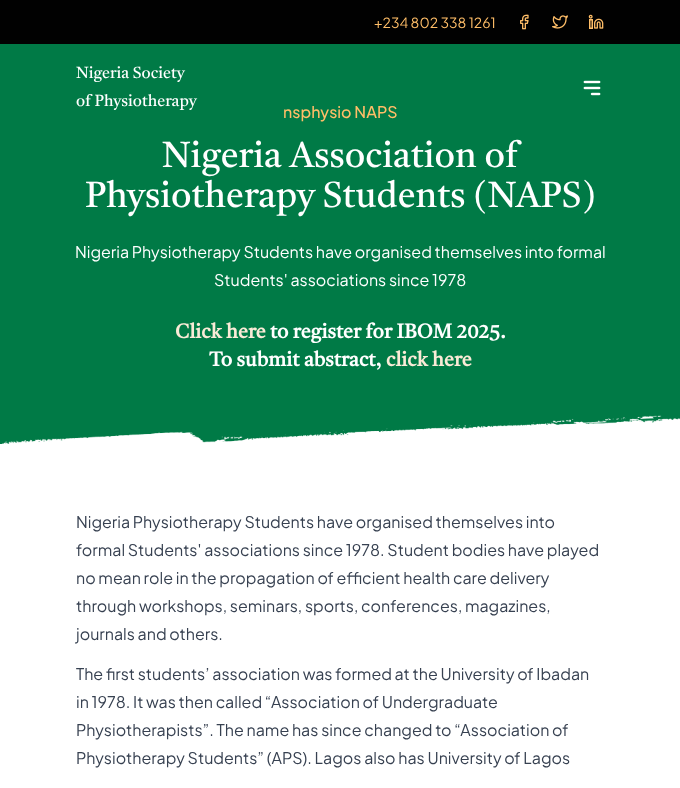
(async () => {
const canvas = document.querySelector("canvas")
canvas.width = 680
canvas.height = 788
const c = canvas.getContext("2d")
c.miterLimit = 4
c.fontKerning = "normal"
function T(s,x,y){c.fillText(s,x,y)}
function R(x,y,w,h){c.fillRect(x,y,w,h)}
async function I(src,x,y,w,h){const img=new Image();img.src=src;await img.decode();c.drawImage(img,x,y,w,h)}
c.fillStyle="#fff"
R(0,0,680,788)
c.fillStyle="#010101"
R(0,0,680,44)
c.font="14px Plus Jakarta Sans"
c.fillStyle="#ffbe68"
T("+234 802 338 1261",374,28)
await I("1.png",520,14,9,16)
await I("2.png",552,15,16,14)
await I("3.png",588,14,16,15)
c.fillStyle="#007a46"
R(0,44,680,400)
c.font="16px Castoro"
c.fillStyle="#fff"
T("Nigeria Society",76,78)
T("of Physiotherapy",76,106)
await I("4.png",583,80,18,16)
c.font="500 16px Plus Jakarta Sans"
c.fillStyle="#ffbe68"
T("nsphysio NAPS",283,118)
c.font="36px Castoro"
c.fillStyle="#fff"
T("Nigeria Association of",162,167)
T("Physiotherapy Students (NAPS)",85,207)
c.font="16px Plus Jakarta Sans"
T("Nigeria Physiotherapy Students have organised themselves into formal",75,258)
T("Students' associations since 1978",214,286)
c.font="bold 20px Castoro"
c.fillStyle="#faebd7"
T("Click here",175,338)
c.fillStyle="#fff"
T("to register for IBOM 2025.",270,338)
T("To submit abstract,",209,366)
c.fillStyle="#faebd7"
T("click here",386,366)
await I("5.png",1,415,679,29)
c.font="16px Plus Jakarta Sans"
c.fillStyle="#374151"
T("Nigeria Physiotherapy Students have organised themselves into",76,528)
T("formal Students' associations since 1978. Student bodies have played",76,556)
T("no mean role in the propagation of efficient health care delivery",76,584)
T("through workshops, seminars, sports, conferences, magazines,",76,612)
T("journals and others.",76,640)
T("The first students’ association was formed at the University of Ibadan",76,680)
T("in 1978. It was then called “Association of Undergraduate",76,708)
T("Physiotherapists”. The name has since changed to “Association of",76,736)
T("Physiotherapy Students” (APS). Lagos also has University of Lagos",76,764)
})()
